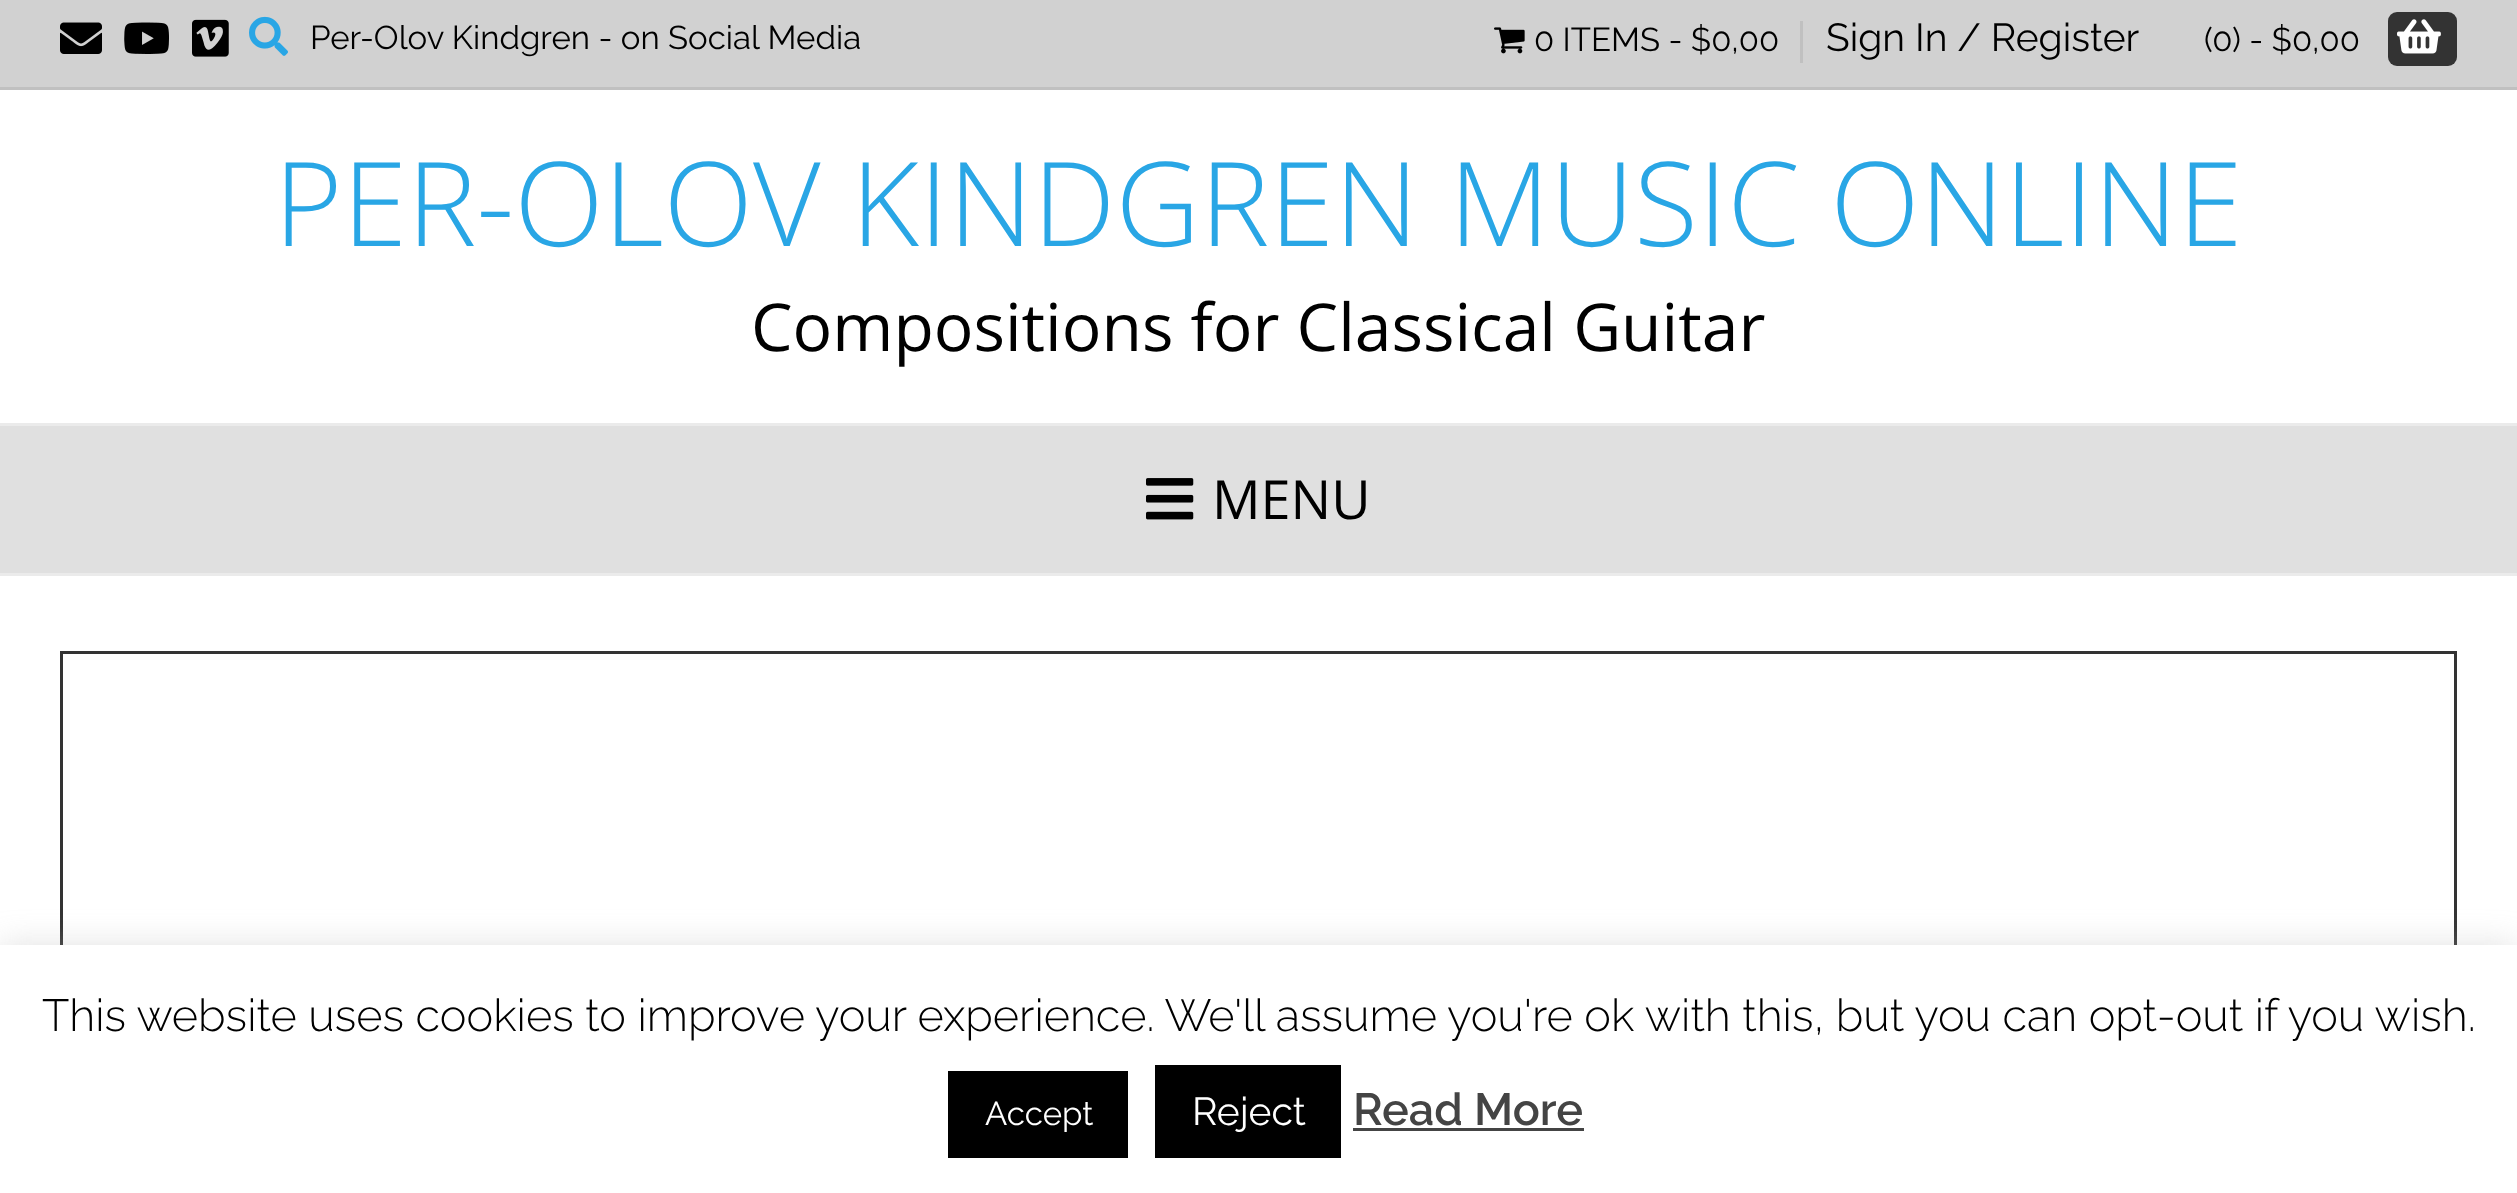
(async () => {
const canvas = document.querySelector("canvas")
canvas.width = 2517
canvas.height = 1193
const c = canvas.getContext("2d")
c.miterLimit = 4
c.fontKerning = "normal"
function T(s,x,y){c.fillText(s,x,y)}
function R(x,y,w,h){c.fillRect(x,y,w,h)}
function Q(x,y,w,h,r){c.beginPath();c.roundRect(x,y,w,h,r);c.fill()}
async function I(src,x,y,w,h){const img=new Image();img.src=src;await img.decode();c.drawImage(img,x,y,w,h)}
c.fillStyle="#fff"
R(0,0,2517,1193)
c.fillStyle="#ebebeb"
R(0,573,2517,3)
c.fillStyle="#d1d1d1"
R(0,0,2517,87)
c.fillStyle="#c0c0c0"
R(0,87,2517,3)
await I("1.png",60,22,42,32)
await I("2.png",124,22,45,32)
await I("3.png",192,19,37,38)
await I("4.png",249,16,39,40)
c.font="33px Raleway"
c.fillStyle="#000"
T("Per-Olov Kindgren - on Social Media",310,49)
c.fillStyle="#c0c0c0"
R(1800,21,3,42)
await I("5.png",1494,27,31,27)
c.fillStyle="#000"
T("0 ITEMS - $0,00",1534,51)
c.font="39px Raleway"
T("Sign In / Register",1826,51)
c.font="33px Raleway"
T("(0) - $0,00",2204,51)
c.fillStyle="#333"
Q(2388,12,69,54,9)
await I("6.png",2397,19,44,35)
c.font="300 117px Open Sans"
c.fillStyle="#29a6e5"
T("PER-OLOV KINDGREN MUSIC ONLINE",274,246)
c.font="66px Open Sans"
c.fillStyle="#000"
T("Compositions for Classical Guitar",751,351)
c.fillStyle="#ebebeb"
R(0,423,2517,3)
c.fillStyle="#e0e0e0"
R(0,426,2517,147)
await I("7.png",1146,478,48,42)
c.font="54px Open Sans"
c.fillStyle="#000"
T("MENU",1212,519)
c.strokeStyle="#333"
c.lineWidth=3
c.strokeRect(61.5,652.5,2394,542)
c.fillStyle="#acabab4d"
c.filter="blur(15px)"
c.beginPath()
c.rect(0,942,2517,249)
c.fill()
c.filter="none"
c.fillStyle="#fff"
R(0,945,2517,248)
c.font="300 45px Raleway"
c.fillStyle="#000"
T("This website uses cookies to improve your experience. We'll assume you're ok with this, but you can opt-out if you wish.",42,1031)
R(948,1071,180,87)
c.font="33px Raleway"
c.fillStyle="#fff"
T("Accept",985,1125)
c.fillStyle="#000"
R(1155,1065,186,93)
c.font="39px Raleway"
c.fillStyle="#fff"
T("Reject",1192,1125)
c.font="600 45px Raleway"
c.fillStyle="#444"
T("Read More",1353,1125)
R(1353,1128,231,3)
})()
